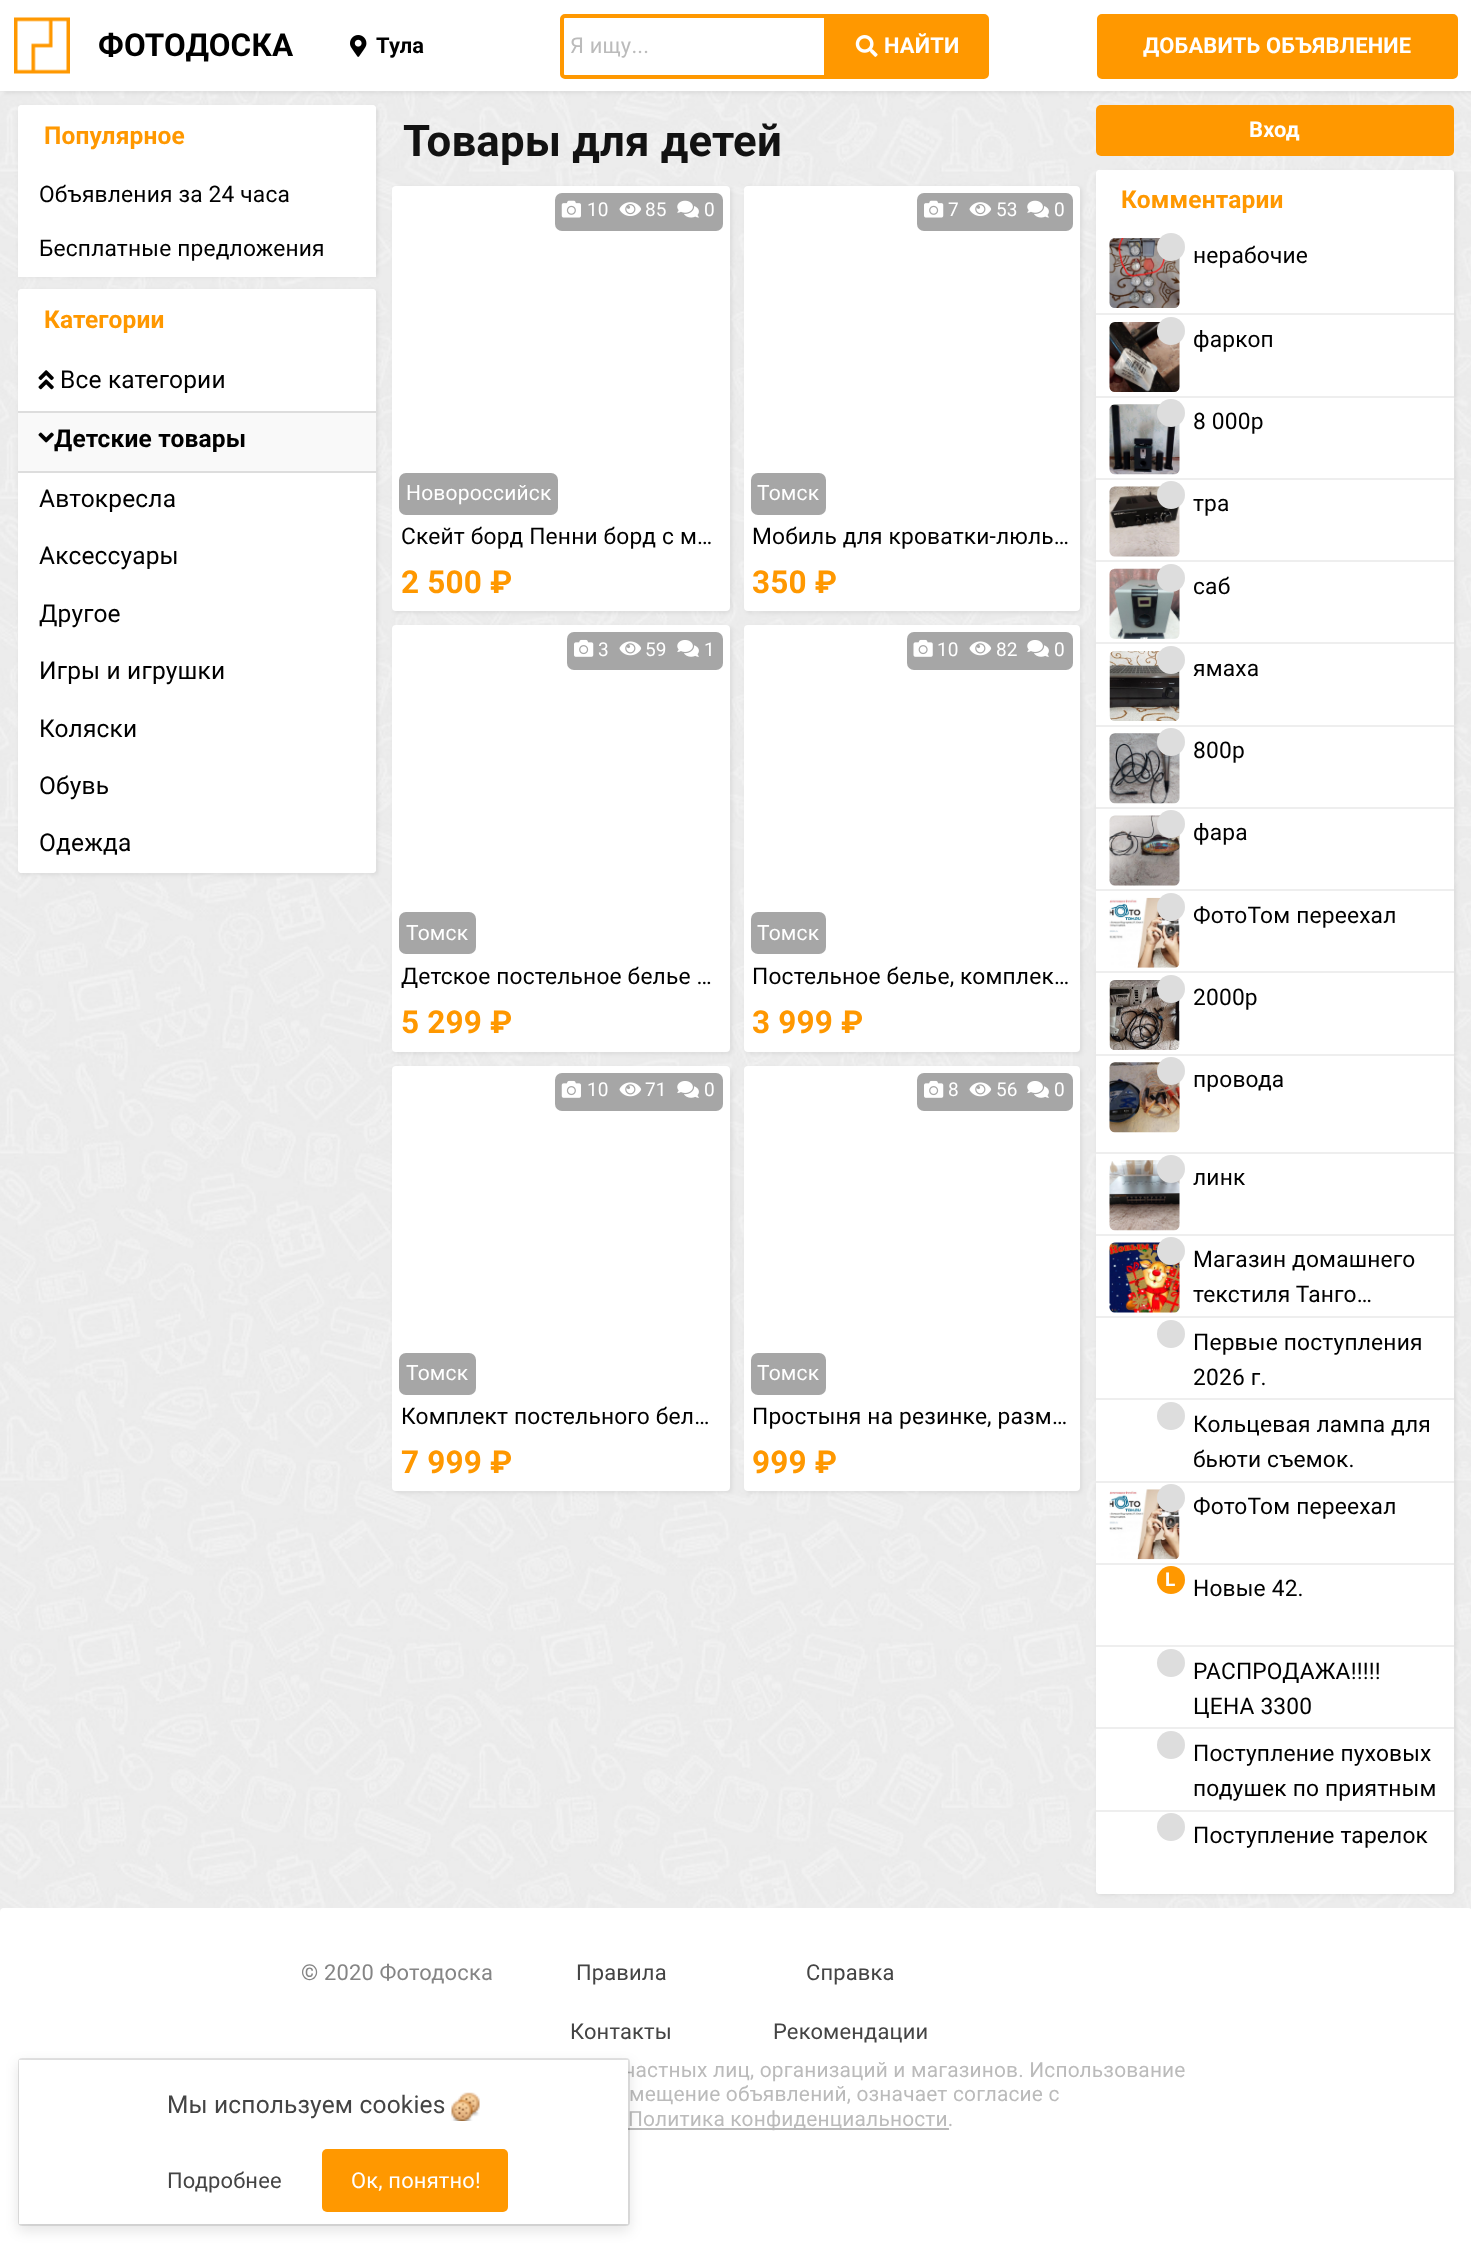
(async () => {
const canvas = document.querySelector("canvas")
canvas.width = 1471
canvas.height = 2243
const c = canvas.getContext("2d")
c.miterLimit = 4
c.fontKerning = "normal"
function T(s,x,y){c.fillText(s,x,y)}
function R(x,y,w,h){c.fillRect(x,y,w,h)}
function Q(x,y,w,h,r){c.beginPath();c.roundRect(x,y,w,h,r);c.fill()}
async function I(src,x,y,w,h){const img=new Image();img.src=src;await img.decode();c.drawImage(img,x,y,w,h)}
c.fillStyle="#fff"
R(0,0,1471,2243)
await I("30.png",0,91,1471,1821)
c.fillStyle="#00000012"
c.filter="blur(2px)"
c.beginPath()
c.rect(2,2,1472,91)
c.fill()
c.filter="none"
c.fillStyle="#fff"
R(0,0,1471,91)
await I("1.png",14,17,56,57)
c.letterSpacing="0.18px"
c.font="bold 31.5px Roboto"
c.fillStyle="#000"
T("ФОТОДОСКА",98,56)
await I("2.png",350,35,17,22)
c.font="bold 21.9px Roboto"
T("Тула",376,53)
c.beginPath()
c.roundRect(562,16,264,61,[3,0,0,3])
c.strokeStyle="#ff9800"
c.lineWidth=4
c.stroke()
c.font="21.9px Roboto"
c.fillStyle="#bbb"
T("Я ищу...",570,53)
c.fillStyle="#ff9800"
c.beginPath()
c.roundRect(827,15,161,63,[0,4,4,0])
c.fill()
c.lineWidth=2
c.stroke()
await I("3.png",855,35,23,22)
c.font="bold 21.9px Roboto"
c.fillStyle="#fff"
T("НАЙТИ",884,53)
c.fillStyle="#ff9800"
c.beginPath()
c.roundRect(1098,15,359,63,4)
c.fill()
c.stroke()
c.fillStyle="#fff"
T("ДОБАВИТЬ ОБЪЯВЛЕНИЕ",1143,53)
c.fillStyle="#00000012"
c.filter="blur(2px)"
c.beginPath()
c.roundRect(19,107,359,170,4)
c.fill()
c.filter="none"
c.fillStyle="#fff"
Q(18,105,358,170,4)
c.beginPath()
c.roundRect(18,105,358,61,[4,4,0,0])
c.fill()
c.font="bold 24.5px Roboto"
c.fillStyle="#ff9800"
T("Популярное",44,144)
c.font="22.75px Roboto"
c.fillStyle="#000"
T("Объявления за 24 часа",39,202)
c.fillStyle="#fff"
R(18,272,358,5)
c.fillStyle="#000"
T("Бесплатные предложения",39,256)
c.fillStyle="#00000012"
c.filter="blur(2px)"
c.beginPath()
c.roundRect(19,291,359,584,4)
c.fill()
c.filter="none"
c.fillStyle="#fff"
Q(18,289,358,584,4)
c.beginPath()
c.roundRect(18,289,358,63,[4,4,0,0])
c.fill()
c.font="bold 24.5px Roboto"
c.fillStyle="#ff9800"
T("Категории",44,328)
c.fillStyle="#ddd"
R(18,411,358,2)
await I("4.png",38,370,16,20)
c.font="24.5px Roboto"
c.fillStyle="#000"
T("Все категории",60,388)
c.fillStyle="#f9f9f9"
R(18,413,358,58)
c.fillStyle="#ddd"
R(18,471,358,2)
await I("5.png",38,432,16,11)
c.font="bold 24.5px Roboto"
c.fillStyle="#000"
T("Детские товары",54,447)
c.font="24.5px Roboto"
T("Автокресла",39,507)
T("Аксессуары",39,564)
T("Другое",39,622)
T("Игры и игрушки",39,679)
T("Коляски",39,737)
T("Обувь",39,794)
c.fillStyle="#fff"
c.beginPath()
c.roundRect(18,816,358,57,[0,0,4,4])
c.fill()
c.fillStyle="#000"
T("Одежда",39,851)
c.font="bold 43.75px Roboto"
c.fillStyle="#121212"
T("Товары для детей",403,156)
c.fillStyle="#00000012"
c.filter="blur(2px)"
c.beginPath()
c.roundRect(394,187,338,426,4)
c.fill()
c.filter="none"
c.fillStyle="#fff"
Q(392,186,338,425,4)
c.fillStyle="#a6a6a6"
Q(555,193,168,38,7)
await I("6.png",561,200,20,18)
c.font="19px Roboto"
c.fillStyle="#fff"
T("10",587,216)
await I("7.png",619,202,23,14)
T("85",645,216)
await I("8.png",677,200,22,18)
T("0",704,216)
c.fillStyle="#a6a6a6"
Q(399,473,159,42,7)
c.font="21px Roboto"
c.fillStyle="#fff"
T("Новороссийск",406,500)
c.font="22.75px Roboto"
c.fillStyle="#000"
T("Скейт борд Пенни борд с м…",401,544)
c.font="bold 31.5px Roboto"
c.fillStyle="#ff9800"
T("2 500 ₽",401,593)
c.fillStyle="#00000012"
c.filter="blur(2px)"
c.beginPath()
c.roundRect(746,187,336,426,4)
c.fill()
c.filter="none"
c.fillStyle="#fff"
Q(744,186,336,425,4)
c.fillStyle="#a6a6a6"
Q(917,193,156,38,7)
await I("9.png",924,200,20,18)
c.font="19px Roboto"
c.fillStyle="#fff"
T("7",948,216)
await I("7.png",969,202,23,14)
T("53",996,216)
await I("8.png",1027,200,22,18)
T("0",1054,216)
c.fillStyle="#a6a6a6"
Q(751,473,75,42,7)
c.font="21px Roboto"
c.fillStyle="#fff"
T("Томск",757,500)
c.font="22.75px Roboto"
c.fillStyle="#000"
T("Мобиль для кроватки-люль…",752,544)
c.font="bold 31.5px Roboto"
c.fillStyle="#ff9800"
T("350 ₽",752,593)
c.fillStyle="#00000012"
c.filter="blur(2px)"
c.beginPath()
c.roundRect(394,627,338,427,4)
c.fill()
c.filter="none"
c.fillStyle="#fff"
Q(392,625,338,427,4)
c.fillStyle="#a6a6a6"
Q(567,632,156,38,7)
await I("10.png",574,639,20,18)
c.font="19px Roboto"
c.fillStyle="#fff"
T("3",598,656)
await I("11.png",619,641,23,15)
T("59",645,656)
await I("12.png",677,640,22,17)
T("1",704,656)
c.fillStyle="#a6a6a6"
Q(399,912,77,42,7)
c.font="21px Roboto"
c.fillStyle="#fff"
T("Томск",406,940)
c.font="22.75px Roboto"
c.fillStyle="#000"
T("Детское постельное белье …",401,984)
c.font="bold 31.5px Roboto"
c.fillStyle="#ff9800"
T("5 299 ₽",401,1033)
c.fillStyle="#00000012"
c.filter="blur(2px)"
c.beginPath()
c.roundRect(746,627,336,427,4)
c.fill()
c.filter="none"
c.fillStyle="#fff"
Q(744,625,336,427,4)
c.fillStyle="#a6a6a6"
Q(907,632,166,38,7)
await I("13.png",913,639,20,18)
c.font="19px Roboto"
c.fillStyle="#fff"
T("10",937,656)
await I("11.png",969,641,23,15)
T("82",996,656)
await I("12.png",1027,640,22,17)
T("0",1054,656)
c.fillStyle="#a6a6a6"
Q(751,912,75,42,7)
c.font="21px Roboto"
c.fillStyle="#fff"
T("Томск",757,940)
c.font="22.75px Roboto"
c.fillStyle="#000"
T("Постельное белье, комплек…",752,984)
c.font="bold 31.5px Roboto"
c.fillStyle="#ff9800"
T("3 999 ₽",752,1033)
c.fillStyle="#00000012"
c.filter="blur(2px)"
c.beginPath()
c.roundRect(394,1068,338,425,4)
c.fill()
c.filter="none"
c.fillStyle="#fff"
Q(392,1066,338,425,4)
c.fillStyle="#a6a6a6"
Q(555,1073,168,38,7)
await I("14.png",561,1080,20,18)
c.font="19px Roboto"
c.fillStyle="#fff"
T("10",587,1096)
await I("11.png",619,1082,23,15)
T("71",645,1096)
await I("12.png",677,1081,22,17)
T("0",704,1096)
c.fillStyle="#a6a6a6"
Q(399,1353,77,42,7)
c.font="21px Roboto"
c.fillStyle="#fff"
T("Томск",406,1380)
c.font="22.75px Roboto"
c.fillStyle="#000"
T("Комплект постельного бел…",401,1424)
c.font="bold 31.5px Roboto"
c.fillStyle="#ff9800"
T("7 999 ₽",401,1473)
c.fillStyle="#00000012"
c.filter="blur(2px)"
c.beginPath()
c.roundRect(746,1068,336,425,4)
c.fill()
c.filter="none"
c.fillStyle="#fff"
Q(744,1066,336,425,4)
c.fillStyle="#a6a6a6"
Q(917,1073,156,38,7)
await I("10.png",924,1080,20,18)
c.font="19px Roboto"
c.fillStyle="#fff"
T("8",948,1096)
await I("11.png",969,1082,23,15)
T("56",996,1096)
await I("12.png",1027,1081,22,17)
T("0",1054,1096)
c.fillStyle="#a6a6a6"
Q(751,1353,75,42,7)
c.font="21px Roboto"
c.fillStyle="#fff"
T("Томск",757,1380)
c.font="22.75px Roboto"
c.fillStyle="#000"
T("Простыня на резинке, разм…",752,1424)
c.font="bold 31.5px Roboto"
c.fillStyle="#ff9800"
T("999 ₽",752,1473)
Q(1096,105,358,51,5)
c.font="bold 21.9px Roboto"
c.fillStyle="#fff"
T("Вход",1249,137)
c.fillStyle="#00000012"
c.filter="blur(2px)"
c.beginPath()
c.roundRect(1097,172,359,1723,4)
c.fill()
c.filter="none"
c.fillStyle="#fff"
Q(1096,170,358,1724,4)
c.beginPath()
c.roundRect(1096,170,358,61,[4,4,0,0])
c.fill()
c.font="bold 24.5px Roboto"
c.fillStyle="#ff9800"
T("Комментарии",1121,208)
c.fillStyle="#eee"
R(1096,313,358,2)
await I("15.png",1109,238,71,70)
c.fillStyle="#ddd"
c.beginPath()
c.arc(1171,247,14,0,7)
c.fill()
c.font="22.75px Roboto"
c.fillStyle="#000"
T("нерабочие",1193,263)
await I("16.png",1109,322,71,70)
c.fillStyle="#ddd"
c.beginPath()
c.arc(1171,331,14,0,7)
c.fill()
c.fillStyle="#000"
T("фаркоп",1193,347)
c.fillStyle="#eee"
R(1096,396,358,2)
R(1096,478,358,2)
await I("17.png",1109,404,71,71)
c.fillStyle="#ddd"
c.beginPath()
c.arc(1171,413,14,0,7)
c.fill()
c.fillStyle="#000"
T("8 000р",1193,429)
c.fillStyle="#eee"
R(1096,560,358,2)
await I("18.png",1109,486,71,71)
c.fillStyle="#ddd"
c.beginPath()
c.arc(1171,495,14,0,7)
c.fill()
c.fillStyle="#000"
T("тра",1193,511)
c.fillStyle="#eee"
R(1096,642,358,2)
await I("19.png",1109,568,71,71)
c.fillStyle="#ddd"
c.beginPath()
c.arc(1171,578,14,0,7)
c.fill()
c.fillStyle="#000"
T("саб",1193,594)
await I("20.png",1109,651,71,70)
c.fillStyle="#ddd"
c.beginPath()
c.arc(1171,660,14,0,7)
c.fill()
c.fillStyle="#000"
T("ямаха",1193,676)
c.fillStyle="#eee"
R(1096,725,358,2)
R(1096,807,358,2)
await I("21.png",1109,733,71,71)
c.fillStyle="#ddd"
c.beginPath()
c.arc(1171,742,14,0,7)
c.fill()
c.fillStyle="#000"
T("800р",1193,758)
c.fillStyle="#eee"
R(1096,889,358,2)
await I("22.png",1109,815,71,71)
c.fillStyle="#ddd"
c.beginPath()
c.arc(1171,824,14,0,7)
c.fill()
c.fillStyle="#000"
T("фара",1193,840)
c.fillStyle="#eee"
R(1096,971,358,2)
await I("23.png",1109,897,71,71)
c.fillStyle="#ddd"
c.beginPath()
c.arc(1171,907,14,0,7)
c.fill()
c.fillStyle="#000"
T("ФотоТом переехал",1193,923)
await I("24.png",1109,980,71,70)
c.fillStyle="#ddd"
c.beginPath()
c.arc(1171,989,14,0,7)
c.fill()
c.fillStyle="#000"
T("2000р",1193,1005)
c.fillStyle="#eee"
R(1096,1054,358,2)
await I("25.png",1109,1062,71,71)
c.fillStyle="#ddd"
c.beginPath()
c.arc(1171,1071,14,0,7)
c.fill()
c.fillStyle="#000"
T("провода",1193,1087)
c.fillStyle="#eee"
R(1096,1152,358,2)
R(1096,1234,358,2)
await I("26.png",1109,1160,71,71)
c.fillStyle="#ddd"
c.beginPath()
c.arc(1171,1169,14,0,7)
c.fill()
c.fillStyle="#000"
T("линк",1193,1185)
c.fillStyle="#eee"
R(1096,1316,358,2)
await I("27.png",1109,1242,71,71)
c.fillStyle="#ddd"
c.beginPath()
c.arc(1171,1251,14,0,7)
c.fill()
c.fillStyle="#000"
T("Магазин домашнего",1193,1267)
T("текстиля Танго…",1193,1302)
c.fillStyle="#eee"
R(1096,1398,358,2)
c.fillStyle="#ddd"
c.beginPath()
c.arc(1171,1334,14,0,7)
c.fill()
c.fillStyle="#000"
T("Первые поступления",1193,1350)
T("2026 г.",1193,1385)
c.fillStyle="#ddd"
c.beginPath()
c.arc(1171,1416,14,0,7)
c.fill()
c.fillStyle="#000"
T("Кольцевая лампа для",1193,1432)
T("бьюти съемок.",1193,1467)
c.fillStyle="#eee"
R(1096,1481,358,2)
R(1096,1563,358,2)
await I("28.png",1109,1489,71,71)
c.fillStyle="#ddd"
c.beginPath()
c.arc(1171,1498,14,0,7)
c.fill()
c.fillStyle="#000"
T("ФотоТом переехал",1193,1514)
c.fillStyle="#eee"
R(1096,1645,358,2)
c.fillStyle="#ff9800"
c.beginPath()
c.arc(1171,1580,14,0,7)
c.fill()
c.font="bold 19px Roboto"
c.fillStyle="#fff"
T("L",1165,1586)
c.font="22.75px Roboto"
c.fillStyle="#000"
T("Новые 42.",1193,1596)
c.fillStyle="#eee"
R(1096,1727,358,2)
c.fillStyle="#ddd"
c.beginPath()
c.arc(1171,1663,14,0,7)
c.fill()
c.fillStyle="#000"
T("РАСПРОДАЖА!!!!!",1193,1679)
T("ЦЕНА 3300",1193,1714)
c.fillStyle="#ddd"
c.beginPath()
c.arc(1171,1745,14,0,7)
c.fill()
c.fillStyle="#000"
T("Поступление пуховых",1193,1761)
T("подушек по приятным",1193,1796)
c.fillStyle="#fff"
c.beginPath()
c.roundRect(1096,1810,358,84,[0,0,4,4])
c.fill()
c.fillStyle="#eee"
R(1096,1810,358,2)
c.fillStyle="#ddd"
c.beginPath()
c.arc(1171,1827,14,0,7)
c.fill()
c.fillStyle="#000"
T("Поступление тарелок",1193,1843)
c.fillStyle="#fff"
Q(0,1908,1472,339,4)
c.font="21.9px Roboto"
c.fillStyle="#858585"
T("© 2020 Фотодоска",301,1980)
c.fillStyle="#444"
T("Правила",576,1980)
T("Контакты",570,2039)
T("Справка",806,1980)
T("Рекомендации",773,2039)
c.font="20.9px Roboto"
c.fillStyle="#bbb"
T("частных лиц, организаций и магазинов. Использование",624,2077)
T("мещение объявлений, означает согласие с",629,2101)
R(628,2128,321,2)
T("Политика конфиденциальности.",628,2126)
c.fillStyle="#0000001a"
c.filter="blur(6.5px)"
c.beginPath()
c.roundRect(18,2063,612,168,4)
c.fill()
c.filter="none"
c.beginPath()
c.roundRect(19,2059,610,166,3)
c.strokeStyle="#0000001a"
c.stroke()
c.fillStyle="#fff"
R(19,2060,609,164)
c.font="24.5px Roboto"
c.fillStyle="#444"
T("Мы используем cookies",167,2113)
await I("29.png",451,2092,29,29)
c.font="21.9px Roboto"
T("Подробнее",167,2188)
c.fillStyle="#ff9800"
Q(322,2149,186,63,5)
c.fillStyle="#fff"
T("Ок, понятно!",351,2188)
})()
